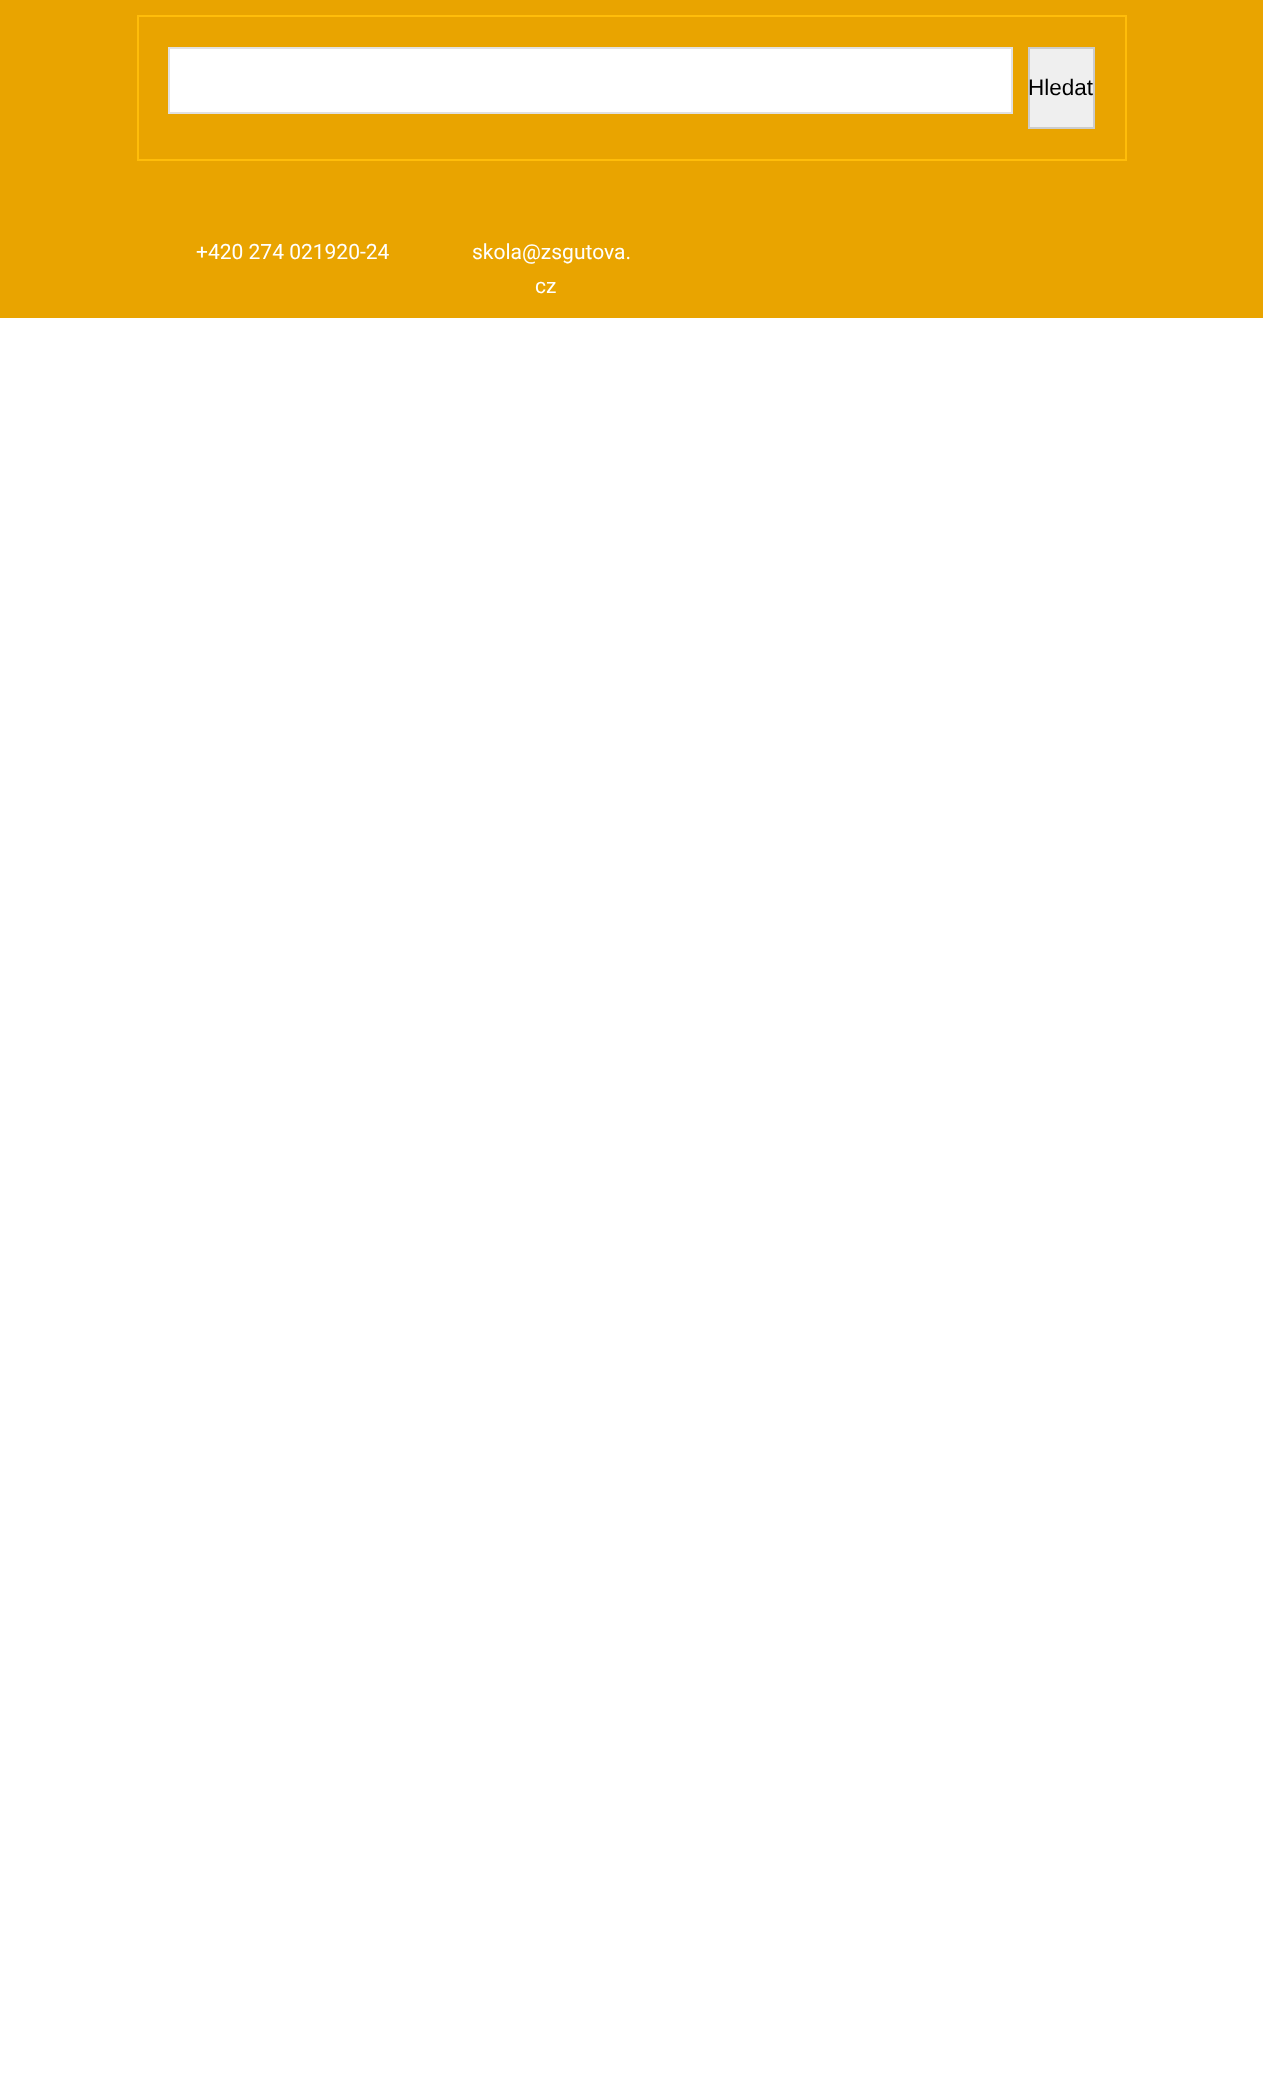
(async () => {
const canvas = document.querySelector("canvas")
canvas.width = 1263
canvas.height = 2099
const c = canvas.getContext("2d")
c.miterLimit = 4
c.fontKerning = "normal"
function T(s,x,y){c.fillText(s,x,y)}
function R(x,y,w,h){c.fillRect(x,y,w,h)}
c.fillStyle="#fff"
R(0,0,1263,2099)
c.fillStyle="#e9a400"
R(0,0,1263,318)
c.strokeStyle="#ffbd0a"
c.lineWidth=2
c.strokeRect(138,16,988,144)
c.fillStyle="#fff"
c.beginPath()
c.rect(169,48,843,65)
c.fill()
c.strokeStyle="#e1e1e1"
c.stroke()
c.fillStyle="#efefef"
c.beginPath()
c.rect(1029,48,65,80)
c.fill()
c.strokeStyle="#ccc"
c.stroke()
c.font="22.5px Liberation Sans"
c.fillStyle="#000"
T("Hledat",1028,95)
c.font="21px Roboto"
c.fillStyle="#fff"
T("+420 274 021920-24",196,259)
T("skola@zsgutova.",472,259)
T("cz",535,293)
})()
